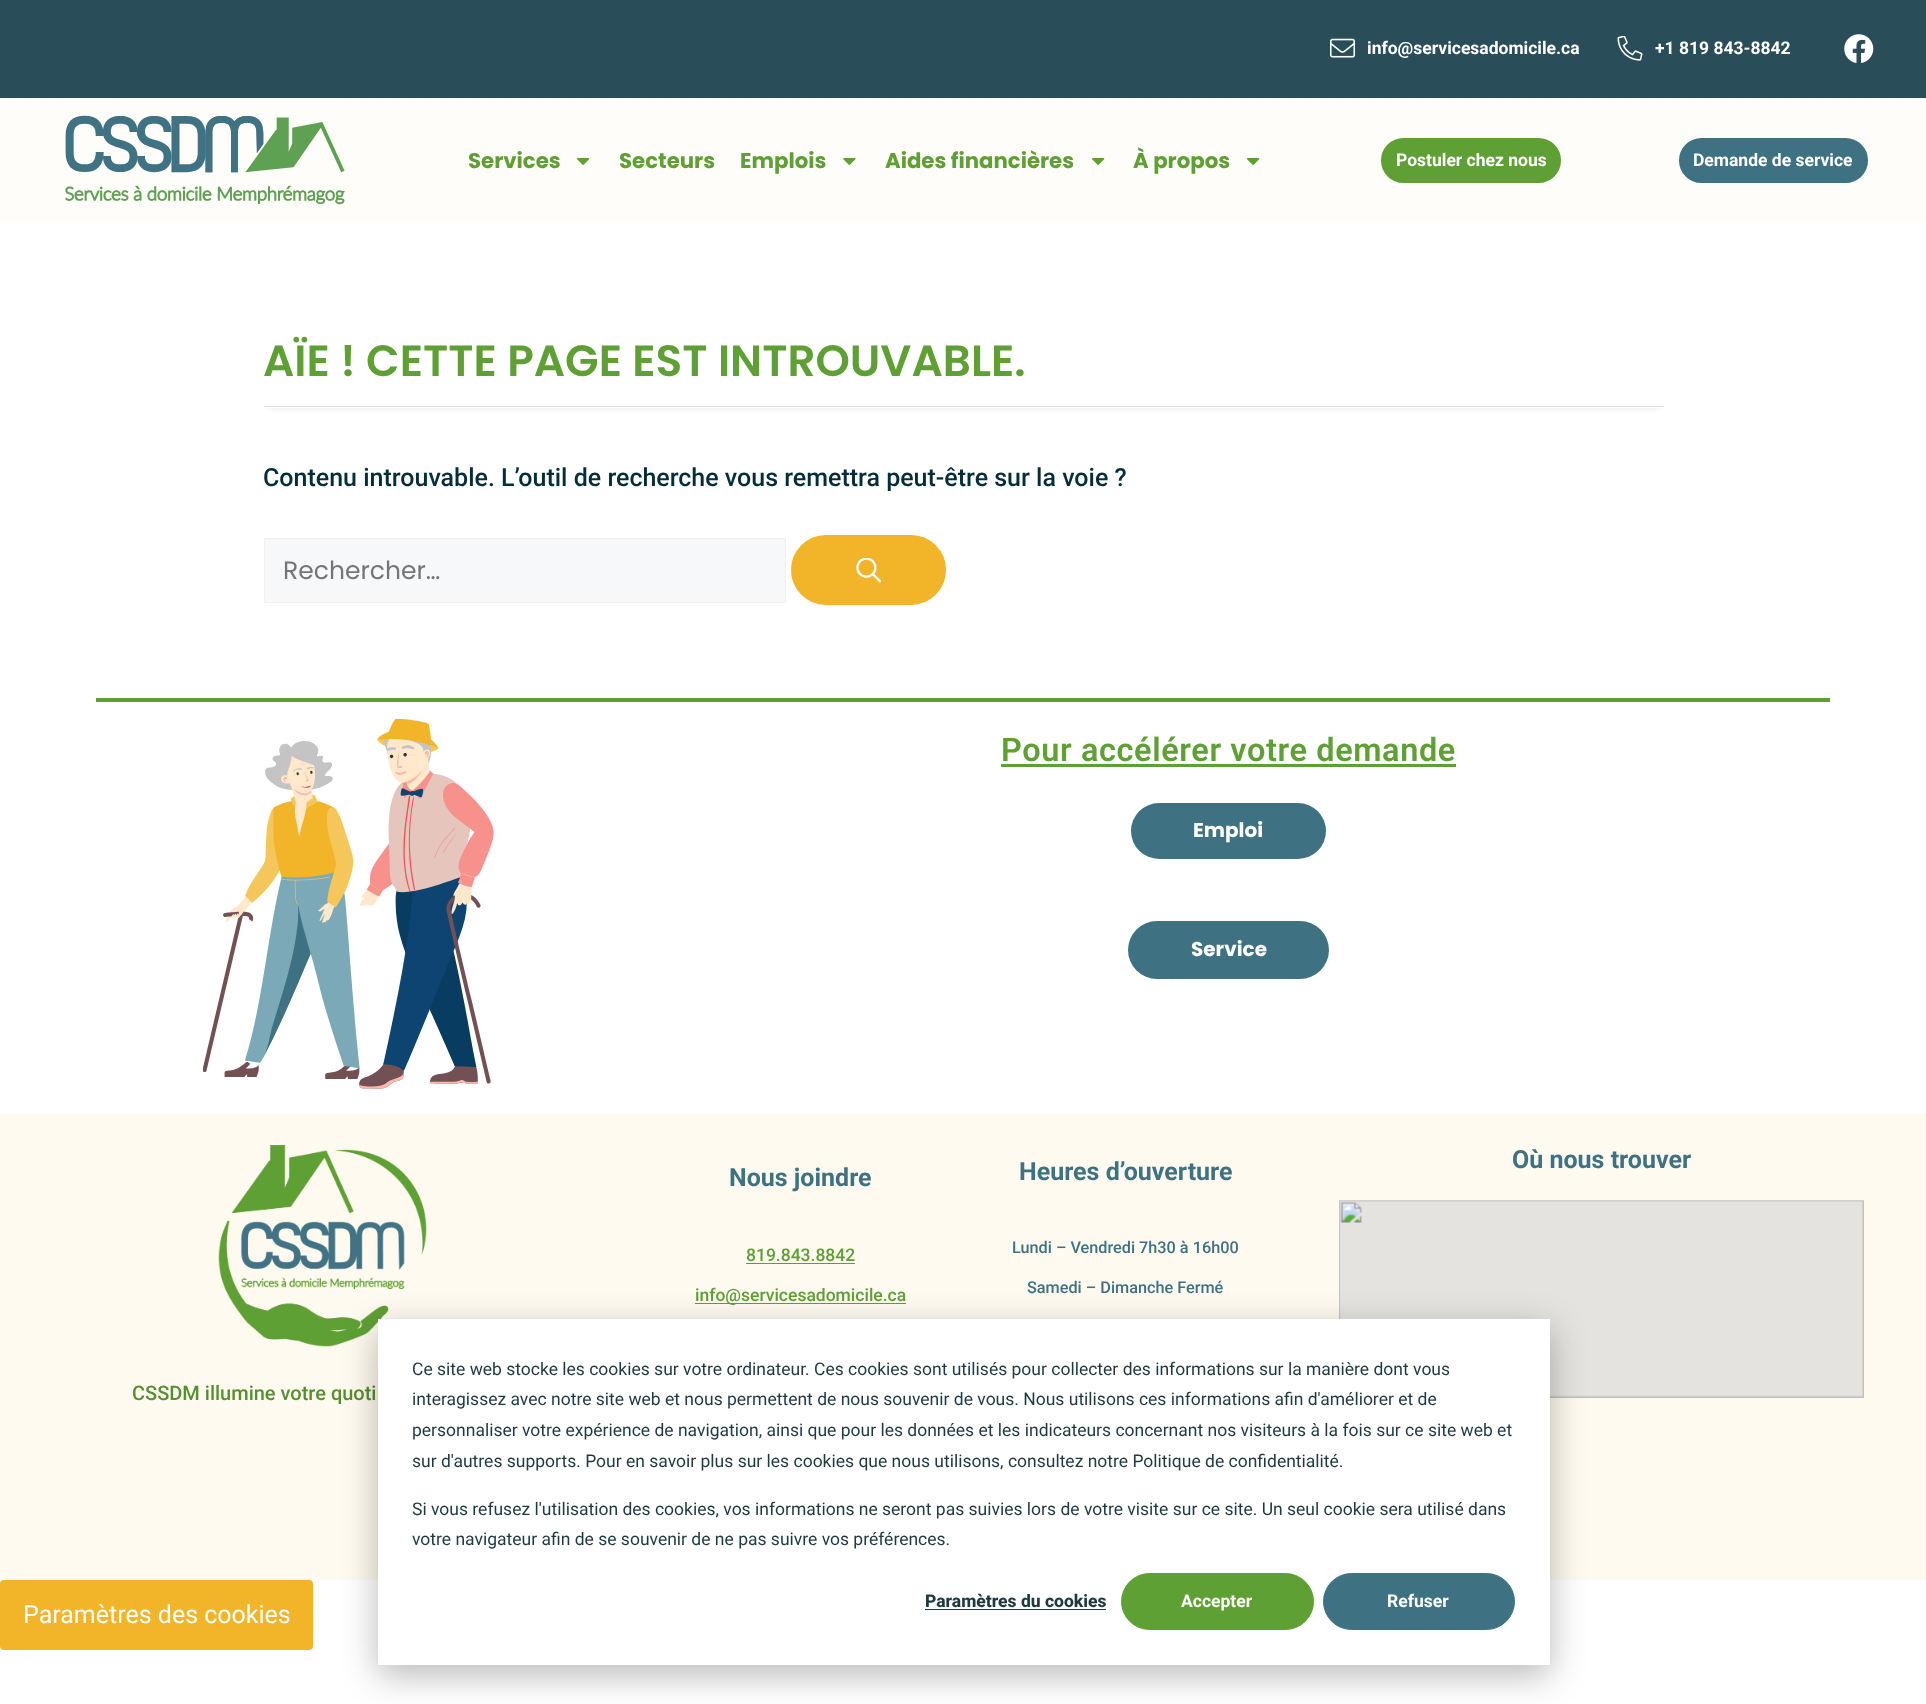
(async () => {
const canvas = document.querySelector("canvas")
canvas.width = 1926
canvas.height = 1704
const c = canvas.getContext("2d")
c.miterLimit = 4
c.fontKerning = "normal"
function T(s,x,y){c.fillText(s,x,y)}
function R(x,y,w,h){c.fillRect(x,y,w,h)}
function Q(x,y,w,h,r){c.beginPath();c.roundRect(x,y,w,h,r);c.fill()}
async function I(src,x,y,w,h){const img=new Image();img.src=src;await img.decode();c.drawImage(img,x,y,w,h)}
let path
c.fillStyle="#fff"
R(0,0,1926,1704)
c.fillStyle="#294e5a"
R(0,0,1926,98)
await I("1.png",1330,38,25,20)
c.font="bold 17.5px Roboto"
c.fillStyle="#fff"
T("info@servicesadomicile.ca",1367,54)
await I("2.png",1617,36,26,25)
T("+1 819 843-8842",1655,54)
await I("3.png",1844,34,30,29)
c.fillStyle="#fffdf9"
R(0,98,1926,125)
await I("4.png",65,115,280,90)
c.font="bold 21.25px Poppins"
c.fillStyle="#5fa034"
T("Services",468,168)
await I("5.png",577,158,13,7)
T("Secteurs",619,168)
T("Emplois",740,168)
await I("6.png",843,158,13,7)
T("Aides financières",885,168)
await I("5.png",1092,158,13,7)
T("À propos",1133,168)
await I("5.png",1247,158,13,7)
c.beginPath()
c.roundRect(1382.5,139.5,177,42,21)
c.fill()
c.strokeStyle="#5fa034"
c.lineWidth=3
c.stroke()
c.font="bold 17.5px Roboto"
c.fillStyle="#fff"
T("Postuler chez nous",1396,166)
c.fillStyle="#3e7283"
c.beginPath()
c.roundRect(1680.5,139.5,186,42,21)
c.fill()
c.strokeStyle="#3e7283"
c.stroke()
c.fillStyle="#fff"
T("Demande de service",1693,166)
c.save()
path = new Path2D("M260 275h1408v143h-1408zm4-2h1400v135h-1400z")
c.clip(path,"evenodd")
c.fillStyle="#0000001a"
c.filter="blur(3px)"
c.beginPath()
c.rect(270,285,1388,123)
c.fill()
c.filter="none"
c.restore()
c.fillStyle="#e1e1e1"
R(264,406,1400,1)
c.font="600 43.75px Poppins"
c.fillStyle="#5fa034"
T("AÏE ! CETTE PAGE EST INTROUVABLE.",263,376)
c.font="500 25px Roboto"
c.fillStyle="#042d3a"
T("Contenu introuvable. L’outil de recherche vous remettra peut-être sur la voie ?",263,486)
c.fillStyle="#f7f8f9"
c.beginPath()
c.rect(264.5,538.5,521,64)
c.fill()
c.strokeStyle="#f0f0f0"
c.lineWidth=1
c.stroke()
c.font="25px Poppins"
c.fillStyle="#757575"
T("Rechercher…",283,579)
c.fillStyle="#f2b52a"
c.beginPath()
c.roundRect(792.5,536.5,152,67,33.5)
c.fill()
c.strokeStyle="#f2b52a"
c.lineWidth=3
c.stroke()
await I("7.png",856,558,25,25)
c.fillStyle="#5fa034"
R(96,698,1734,4)
await I("8.png",203,719,291,370)
c.letterSpacing="0.6px"
c.font="600 32.5px Roboto"
T("Pour accélérer votre demande",1001,761)
R(1001,764,455,3)
c.fillStyle="#3e7283"
Q(1131,803,195,56,28)
c.letterSpacing="0px"
c.font="bold 20px Poppins"
c.fillStyle="#fff"
T("Emploi",1193,837)
c.fillStyle="#3e7283"
Q(1128,921,201,58,29)
c.fillStyle="#fff"
T("Service",1191,956)
c.fillStyle="#fffaef"
R(0,1114,1926,466)
c.font="bold 25px Roboto"
c.fillStyle="#3e7283"
T("Où nous trouver",1512,1168)
await I("9.png",1339,1200,525,198)
T("Nous joindre",729,1186)
c.font="500 17.5px Roboto"
c.fillStyle="#5fa034"
T("819.843.8842",746,1261)
R(746,1263,109,1)
R(695,1303,211,1)
T("info@servicesadomicile.ca",695,1301)
c.font="bold 25px Roboto"
c.fillStyle="#3e7283"
T("Heures d’ouverture",1019,1180)
c.font="500 16.25px Roboto"
T("Lundi – Vendredi 7h30 à 16h00",1012,1253)
T("Samedi – Dimanche Fermé",1027,1293)
await I("10.png",218,1145,209,202)
c.font="500 20px Roboto"
c.fillStyle="#55902e"
T("CSSDM illumine votre quoti",132,1400)
c.fillStyle="#00000047"
c.filter="blur(17.5px)"
c.beginPath()
c.rect(378,1329,1172,346)
c.fill()
c.filter="none"
c.fillStyle="#fff"
R(378,1319,1172,346)
c.font="17.5px Roboto"
c.fillStyle="#1f3941"
T("Ce site web stocke les cookies sur votre ordinateur. Ces cookies sont utilisés pour collecter des informations sur la manière dont vous",412,1375)
T("interagissez avec notre site web et nous permettent de nous souvenir de vous. Nous utilisons ces informations afin d'améliorer et de",412,1405)
T("personnaliser votre expérience de navigation, ainsi que pour les données et les indicateurs concernant nos visiteurs à la fois sur ce site web et",412,1436)
T("sur d'autres supports. Pour en savoir plus sur les cookies que nous utilisons, consultez notre Politique de confidentialité.",412,1467)
T("Si vous refusez l'utilisation des cookies, vos informations ne seront pas suivies lors de votre visite sur ce site. Un seul cookie sera utilisé dans",412,1515)
T("votre navigateur afin de se souvenir de ne pas suivre vos préférences.",412,1545)
c.font="800 17.5px Roboto"
T("Paramètres du cookies",925,1607)
R(925,1609,181,1)
c.fillStyle="#5fa034"
c.beginPath()
c.roundRect(1121.5,1573.5,192,56,28)
c.fill()
c.strokeStyle="#5fa034"
c.lineWidth=1
c.stroke()
c.font="bold 17.5px Roboto"
c.fillStyle="#fff"
T("Accepter",1181,1607)
c.fillStyle="#3e7283"
c.beginPath()
c.roundRect(1323.5,1573.5,191,56,28)
c.fill()
c.strokeStyle="#3e7283"
c.stroke()
c.fillStyle="#fff"
T("Refuser",1387,1607)
c.fillStyle="#f2b52a"
c.beginPath()
c.roundRect(1.5,1581.5,310,67,2.5)
c.fill()
c.strokeStyle="#f2b52a"
c.lineWidth=3
c.stroke()
c.font="25px Roboto"
c.fillStyle="#fff"
T("Paramètres des cookies",23,1623)
})()
